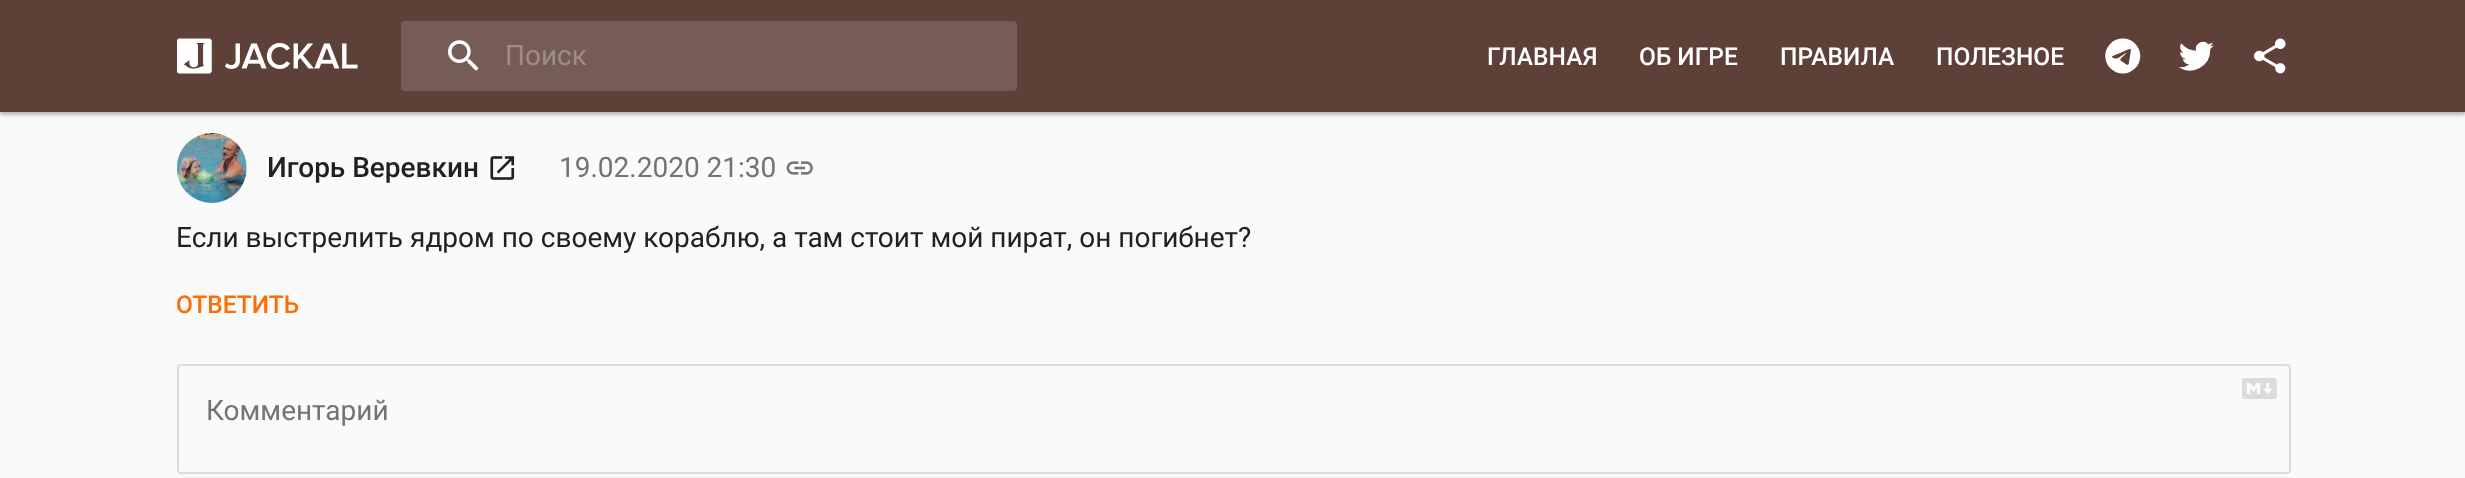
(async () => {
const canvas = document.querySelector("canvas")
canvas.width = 2465
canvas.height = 478
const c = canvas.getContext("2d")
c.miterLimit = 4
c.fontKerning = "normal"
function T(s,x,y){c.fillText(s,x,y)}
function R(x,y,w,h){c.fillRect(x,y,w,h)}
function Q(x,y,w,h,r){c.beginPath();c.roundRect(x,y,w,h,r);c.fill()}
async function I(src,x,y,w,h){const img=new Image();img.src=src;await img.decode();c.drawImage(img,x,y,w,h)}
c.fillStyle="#fafafa"
R(0,0,2465,478)
c.fillStyle="#0000003d"
c.filter="blur(2px)"
c.beginPath()
c.rect(0,2,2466,112)
c.fill()
c.filter="none"
c.fillStyle="#0000001f"
c.filter="blur(2.5px)"
c.beginPath()
c.rect(0,2,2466,112)
c.fill()
c.filter="none"
c.fillStyle="#5d4037"
R(0,0,2465,112)
await I("1.png",177,38,181,36)
c.fillStyle="#755d55"
Q(401,21,616,70,4)
await I("2.png",448,40,31,31)
c.font="28px Roboto"
c.fillStyle="#9e8e88"
T("Поиск",505,65)
c.font="500 24.5px Roboto"
c.fillStyle="#fff"
T("ГЛАВНАЯ",1487,65)
T("ОБ ИГРЕ",1639,65)
T("ПРАВИЛА",1780,65)
T("ПОЛЕЗНОЕ",1936,65)
await I("3.png",2105,38,36,36)
await I("4.png",2179,41,35,30)
await I("5.png",2254,38,32,36)
await I("6.png",176,133,71,70)
c.font="500 28px Roboto"
c.fillStyle="#212121"
T("Игорь Веревкин",267,177)
await I("7.png",490,156,25,24)
c.font="28px Roboto"
c.fillStyle="#737373"
T("19.02.2020 21:30",559,177)
await I("8.png",786,161,27,14)
c.fillStyle="#212121"
T("Если выстрелить ядром по своему кораблю, а там стоит мой пират, он погибнет?",176,247)
c.font="500 24.5px Roboto"
c.fillStyle="#ff6d00"
T("ОТВЕТИТЬ",176,313)
c.beginPath()
c.roundRect(178,365,2112,108,3)
c.strokeStyle="#dcdcdc"
c.lineWidth=2
c.stroke()
await I("9.png",2242,378,35,21)
c.font="28px Roboto"
c.fillStyle="#737373"
T("Комментарий",206,420)
})()
